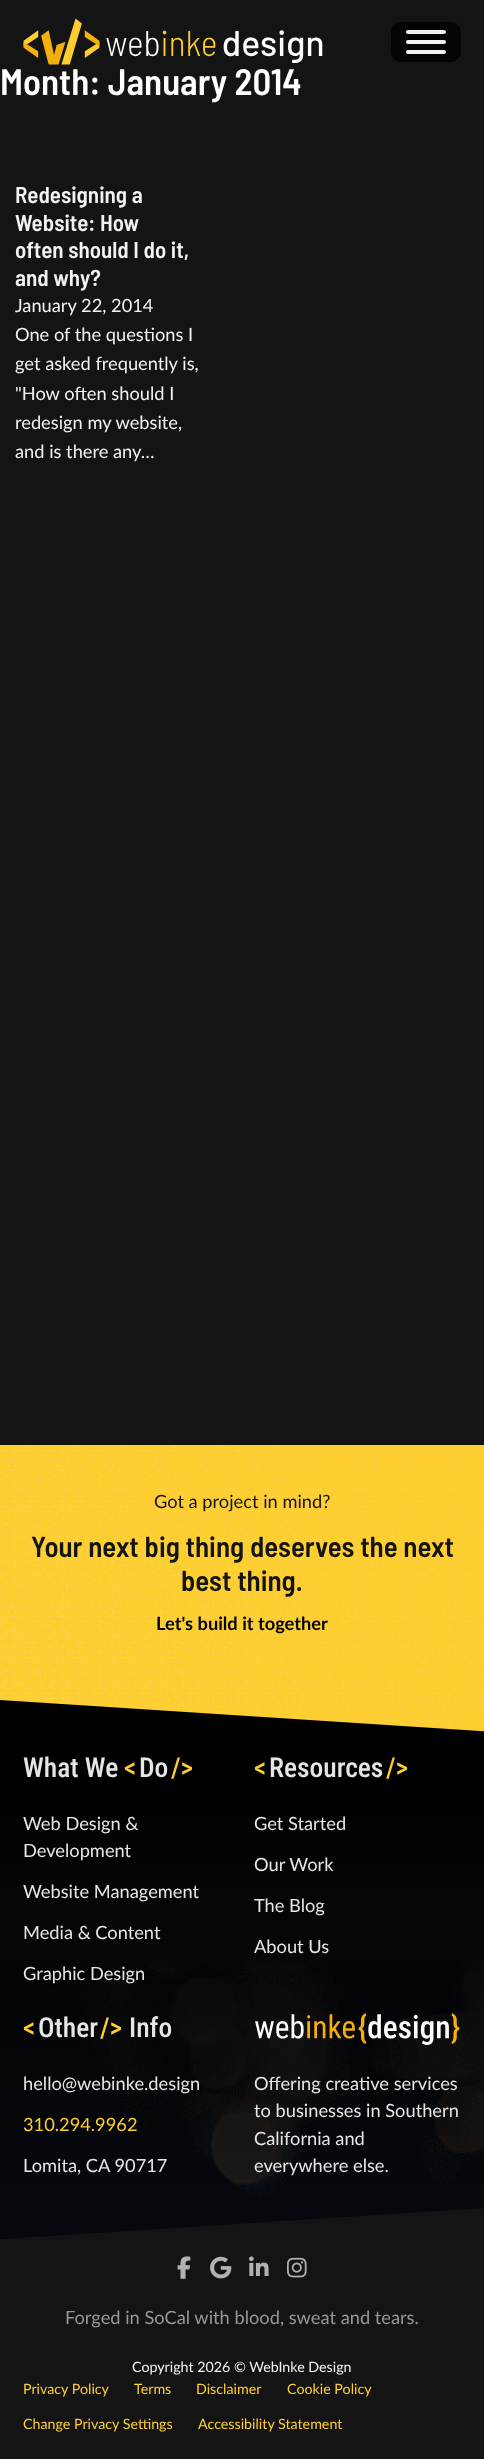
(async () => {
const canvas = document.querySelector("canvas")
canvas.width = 484
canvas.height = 2459
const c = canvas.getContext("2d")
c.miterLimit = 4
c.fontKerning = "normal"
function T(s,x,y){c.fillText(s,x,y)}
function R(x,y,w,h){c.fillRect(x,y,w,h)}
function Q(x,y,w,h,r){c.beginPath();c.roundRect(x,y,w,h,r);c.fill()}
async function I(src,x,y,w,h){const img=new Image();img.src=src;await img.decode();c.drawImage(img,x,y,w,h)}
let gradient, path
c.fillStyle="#141414"
R(0,0,484,2459)
await I("1.png",23,18,300,47)
c.fillStyle="#040404"
Q(391,22,70,40,10)
c.fillStyle="#f2f2f2"
Q(406,40,40,4,2)
Q(406,30,40,4,2)
Q(406,50,40,4,2)
c.font="600 36.75px Barlow Semi Condensed"
c.fillStyle="#fff"
T("Month: January 2014",0,95)
c.font="600 23px Barlow Semi Condensed"
c.fillStyle="#f2f2f2"
T("Redesigning a",15,203)
T("Website: How",15,231)
T("often should I do it,",15,258)
T("and why?",15,286)
c.font="18.25px Lato"
T("January 22, 2014",15,312)
T("One of the questions I",15,341)
T("get asked frequently is,",15,370)
T("\"How often should I",15,400)
T("redesign my website,",15,429)
T("and is there any…",15,458)
c.fillStyle="#fece2f"
R(0,1445,484,287)
await I("2.png",0,1445,484,286)
gradient = c.createLinearGradient(49,1783,435,1396)
gradient.addColorStop(.1,"#fece2f33")
gradient.addColorStop(.9,"#fece2f99")
c.fillStyle = gradient
R(0,1445,484,286)
c.fillStyle="#141414"
T("Got a project in mind?",154,1508)
c.font="600 28.8px Barlow Semi Condensed"
T("Your next big thing deserves the next",31,1557)
T("best thing.",181,1591)
c.font="bold 18.25px Lato"
c.fillStyle="#000"
T("Let's build it together",156,1630)
c.save()
c.beginPath()
c.rect(0,1696,484,38)
c.clip()
path = new Path2D("M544 1735l-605-39v39z")
c.fill(path,"evenodd")
c.restore()
await I("3.png",0,1908,484,332)
gradient = c.createLinearGradient(242,1734,242,2243)
gradient.addColorStop(.1,"#000")
gradient.addColorStop(1,"#00000000")
c.fillStyle = gradient
R(0,1734,484,453)
c.font="500 27.5px Roboto Condensed"
c.fillStyle="#e6e6e6"
T("What We",23,1777)
c.fillStyle="#fece2f"
T("<",124,1777)
c.fillStyle="#e6e6e6"
T("Do",139,1777)
c.fillStyle="#fece2f"
T("/>",171,1777)
c.font="18.25px Lato"
c.fillStyle="#e6e6e6"
T("Web Design &",23,1830)
T("Development",23,1857)
T("Website Management",23,1898)
T("Media & Content",23,1939)
T("Graphic Design",23,1980)
c.font="500 27.5px Roboto Condensed"
c.fillStyle="#fece2f"
T("<",254,1777)
c.fillStyle="#e6e6e6"
T("Resources",269,1777)
c.fillStyle="#fece2f"
T("/>",386,1777)
c.font="18.25px Lato"
c.fillStyle="#e6e6e6"
T("Get Started",254,1830)
T("Our Work",254,1871)
T("The Blog",254,1912)
T("About Us",254,1953)
c.font="500 27.5px Roboto Condensed"
c.fillStyle="#fece2f"
T("<",23,2037)
c.fillStyle="#e6e6e6"
T("Other",38,2037)
c.fillStyle="#fece2f"
T("/>",100,2037)
c.fillStyle="#e6e6e6"
T("Info",129,2037)
c.font="18.25px Lato"
T("hello@webinke.design",23,2090)
c.fillStyle="#fece2f"
T("310.294.9962",23,2131)
c.fillStyle="#e6e6e6"
T("Lomita, CA 90717",23,2172)
await I("4.png",255,2013,205,32)
T("Offering creative services",254,2090)
T("to businesses in Southern",254,2117)
T("California and",254,2145)
T("everywhere else.",254,2172)
c.fillStyle="#141414"
path = new Path2D("M-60 2243l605-39v39z")
c.fill(path,"evenodd")
await I("5.png",177,2256,14,23)
await I("6.png",210,2256,22,23)
await I("7.png",249,2256,20,20)
await I("8.png",287,2257,20,21)
c.fillStyle="#989898"
T("Forged in SoCal with blood, sweat and tears.",65,2324)
c.font="14.25px Lato"
c.fillStyle="#f2f2f2"
T("Copyright 2026 © WebInke Design",132,2372)
c.fillStyle="#fece2f"
T("Privacy Policy",23,2394)
T("Terms",134,2394)
T("Disclaimer",196,2394)
T("Cookie Policy",287,2394)
T("Change Privacy Settings",23,2429)
T("Accessibility Statement",198,2429)
})()
